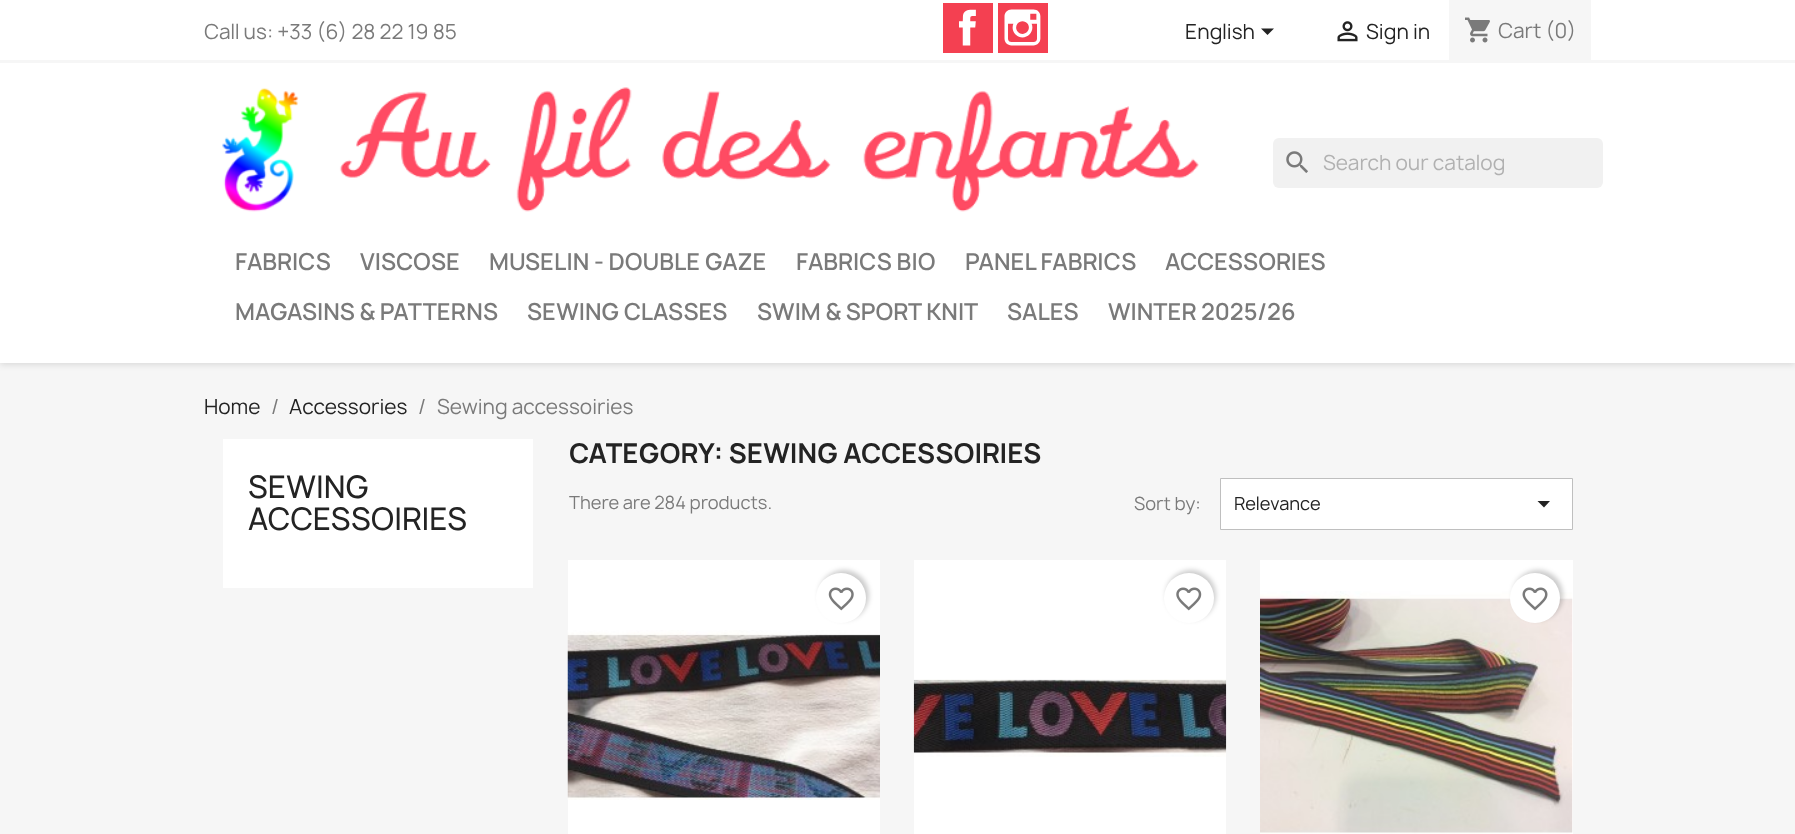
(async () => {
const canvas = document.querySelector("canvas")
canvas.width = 1795
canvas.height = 834
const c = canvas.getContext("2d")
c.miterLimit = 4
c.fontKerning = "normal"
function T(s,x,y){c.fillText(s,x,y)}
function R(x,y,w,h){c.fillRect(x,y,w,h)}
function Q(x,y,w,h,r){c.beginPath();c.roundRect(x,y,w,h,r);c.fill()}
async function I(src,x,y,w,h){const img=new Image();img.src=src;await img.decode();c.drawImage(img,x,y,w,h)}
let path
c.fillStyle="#f6f6f6"
R(0,0,1795,834)
c.fillStyle="#0000001c"
c.filter="blur(3px)"
c.beginPath()
c.rect(0,3,1795,362)
c.fill()
c.filter="none"
c.fillStyle="#fff"
R(0,0,1795,363)
c.fillStyle="#f6f6f6"
R(0,60,1795,3)
c.font="20px Manrope"
c.fillStyle="#7a7a7a"
T("Call us: +33 (6) 28 22 19 85",204,39)
c.fillStyle="#f44051"
R(943,3,50,50)
await I("1.png",959,9,17,37)
R(998,3,50,50)
await I("2.png",1004,9,37,37)
c.fillStyle="#232323"
T("English",1185,39)
path = new Path2D("M1261 28.5h13l-6.5 6.5z")
c.fill(path)
await I("3.png",1337,21,21,21)
T("Sign in",1366,39)
c.fillStyle="#f6f6f6"
R(1449,0,142,60)
await I("4.png",1465,17,25,26)
c.fillStyle="#7a7a7a"
T("Cart (0)",1498,38)
await I("5.png",222,87,977,125)
c.fillStyle="#f1f1f1"
Q(1273,138,330,50,6)
await I("6.png",1286,151,22,22)
c.fillStyle="#b1b1b1"
T("Search our catalog",1323,170)
c.font="600 22.5px Manrope"
c.fillStyle="#7a7a7a"
T("FABRICS",235,270)
T("VISCOSE",360,270)
T("MUSELIN - DOUBLE GAZE",489,270)
T("FABRICS BIO",796,270)
T("PANEL FABRICS",965,270)
T("ACCESSORIES",1165,270)
T("MAGASINS & PATTERNS",235,320)
T("SEWING CLASSES",527,320)
T("SWIM & SPORT KNIT",757,320)
T("SALES",1007,320)
T("WINTER 2025/26",1108,320)
c.font="20px Manrope"
c.fillStyle="#232323"
T("Home",204,414)
c.fillStyle="#7a7a7a"
T("/",271,414)
c.fillStyle="#232323"
T("Accessories",289,414)
c.fillStyle="#7a7a7a"
T("/",418,414)
T("Sewing accessoiries",437,414)
c.fillStyle="#fff"
R(223,439,310,149)
c.font="500 30px Manrope"
c.fillStyle="#232323"
T("SEWING",248,498)
T("ACCESSOIRIES",248,530)
c.font="bold 26.25px Manrope"
T("CATEGORY: SEWING ACCESSOIRIES",569,463)
c.font="17.5px Manrope"
c.fillStyle="#7a7a7a"
T("There are 284 products.",569,509)
T("Sort by:",1134,510)
c.fillStyle="#fff"
c.beginPath()
c.rect(1220.5,478.5,352,51)
c.fill()
c.strokeStyle="#bfbfbf"
c.stroke()
c.fillStyle="#232323"
T("Relevance",1234,510)
path = new Path2D("M1537.5 501h12.5l-6 6.5z")
c.fill(path)
c.fillStyle="#fff"
R(568,560,312,274)
c.fillStyle="#00000033"
c.filter="blur(2.5px)"
c.beginPath()
c.roundRect(819,570,50,50,25)
c.fill()
c.filter="none"
c.fillStyle="#fff"
c.beginPath()
c.arc(841,598,25,0,7)
c.fill()
await I("7.png",828,587,26,24)
await I("8.png",567,630,313,170)
R(914,560,312,274)
c.fillStyle="#00000033"
c.filter="blur(2.5px)"
c.beginPath()
c.roundRect(1166,570,50,50,25)
c.fill()
c.filter="none"
c.fillStyle="#fff"
c.beginPath()
c.arc(1189,598,25,0,7)
c.fill()
await I("9.png",1176,587,26,24)
await I("10.png",913,679,314,78)
R(1260,560,313,274)
await I("12.png",1260,591,313,243)
c.fillStyle="#00000033"
c.filter="blur(2.5px)"
c.beginPath()
c.roundRect(1513,570,50,50,25)
c.fill()
c.filter="none"
c.fillStyle="#fff"
c.beginPath()
c.arc(1535,598,25,0,7)
c.fill()
await I("11.png",1522,587,26,24)
})()
